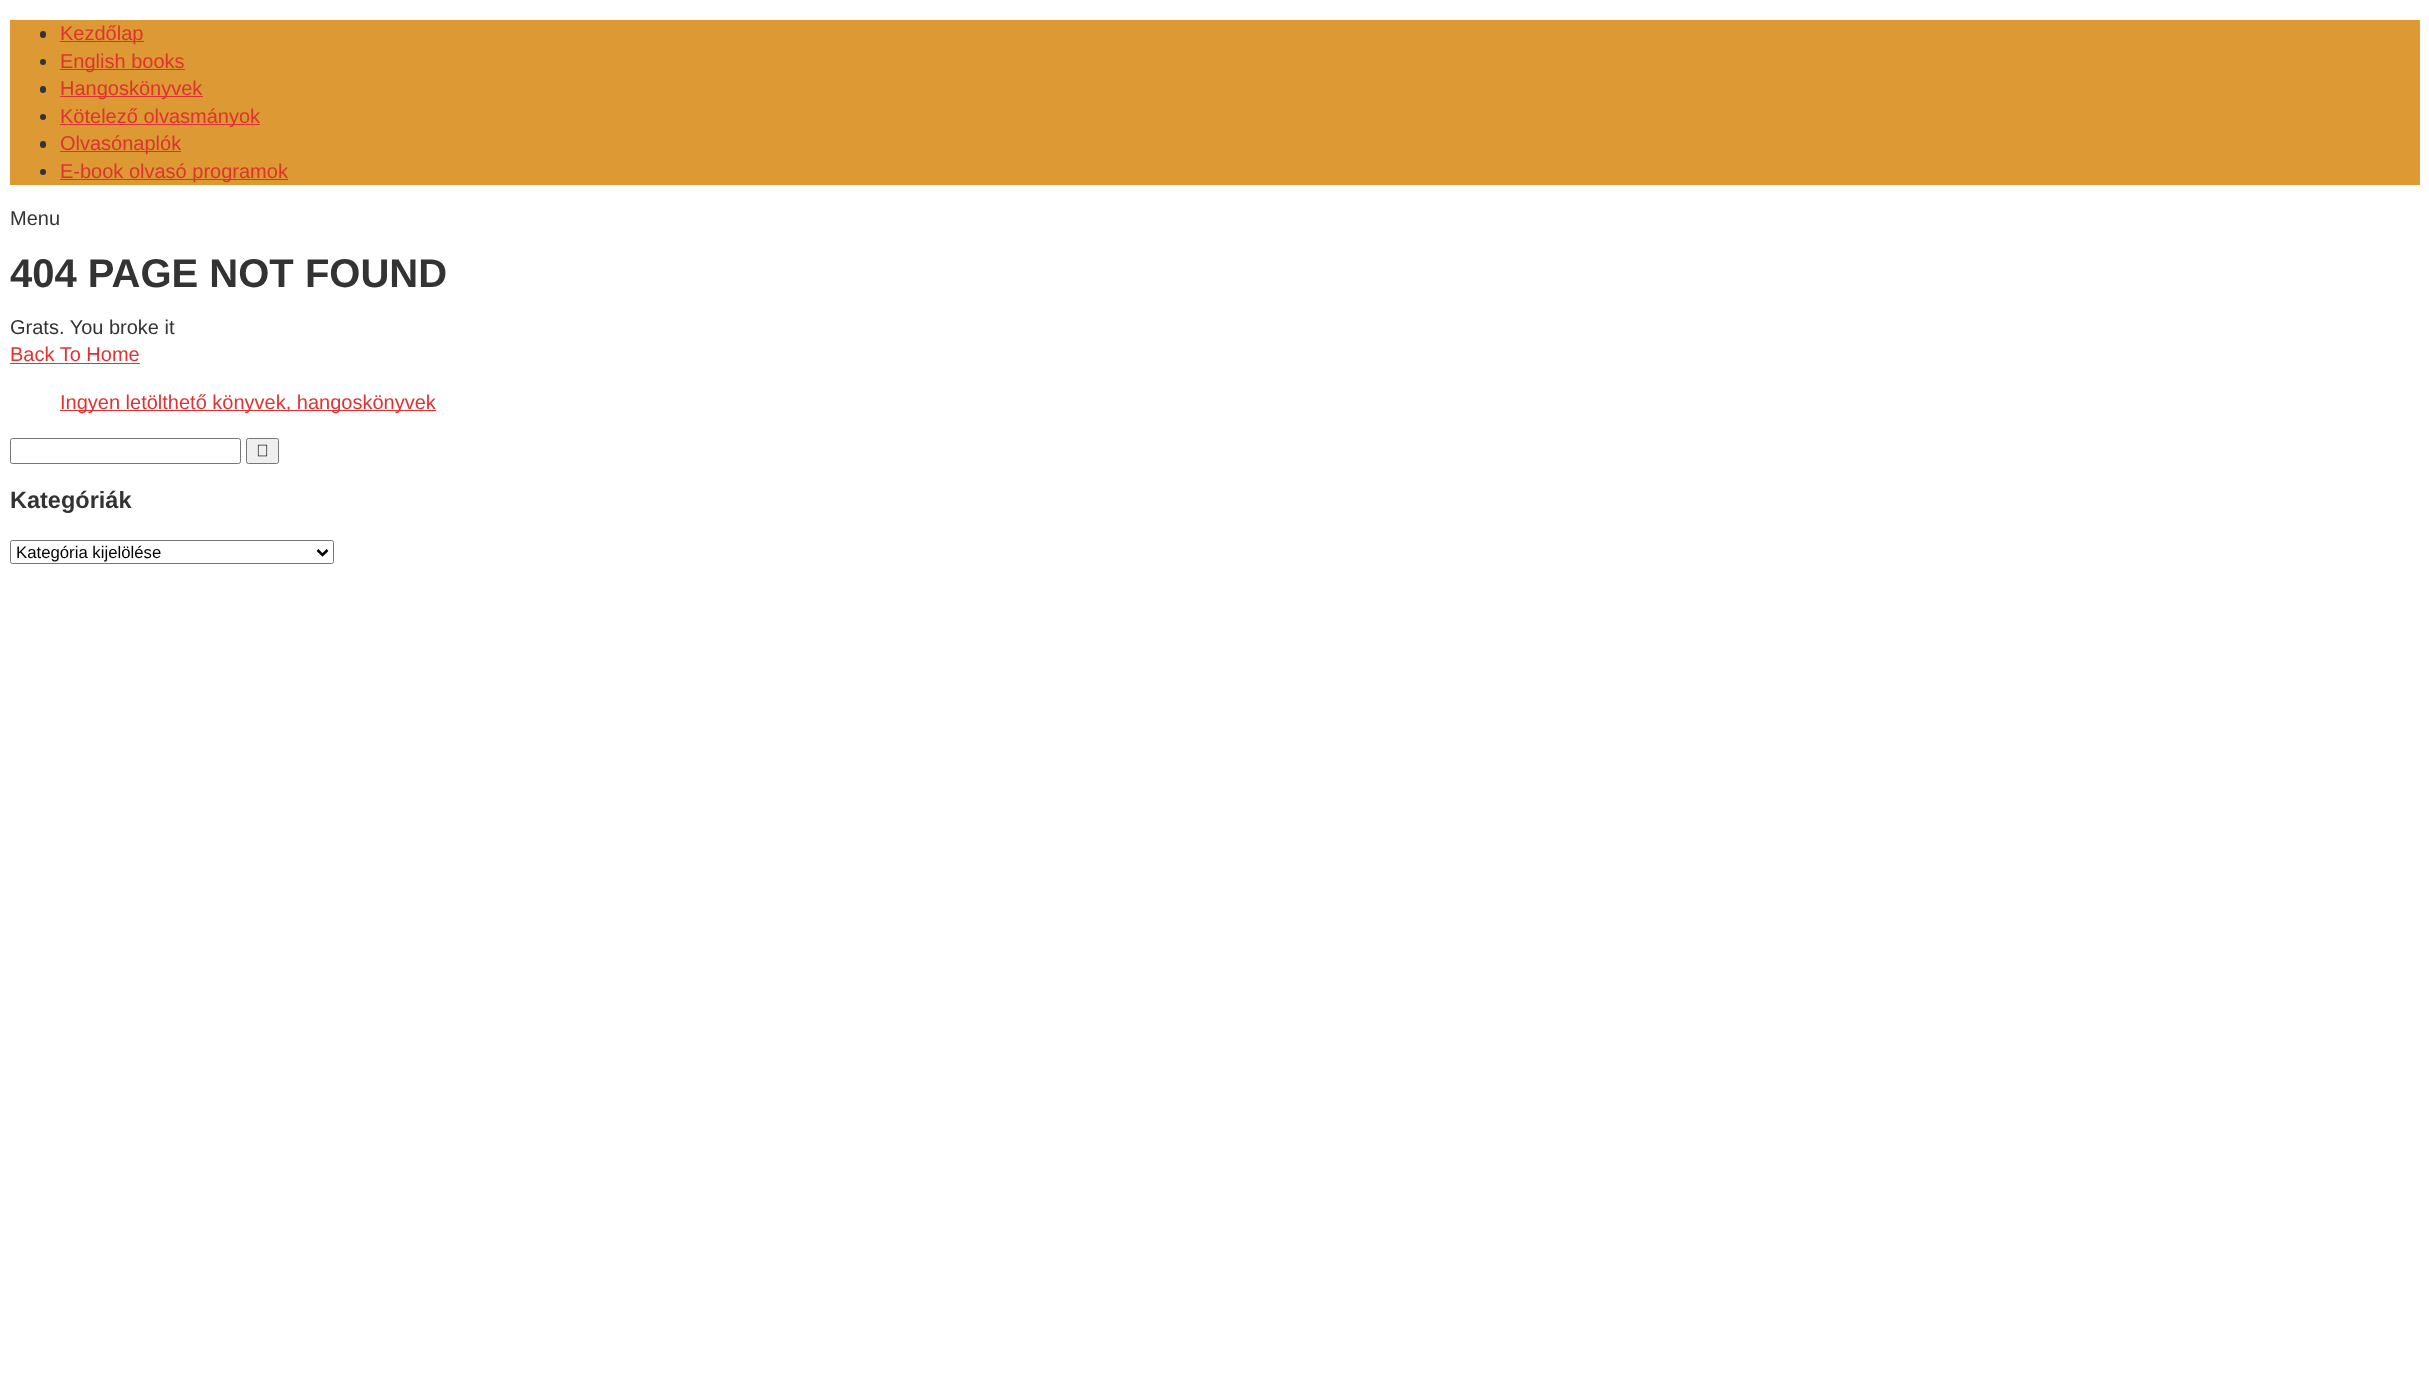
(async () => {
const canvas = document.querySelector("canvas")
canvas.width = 2429
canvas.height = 1379
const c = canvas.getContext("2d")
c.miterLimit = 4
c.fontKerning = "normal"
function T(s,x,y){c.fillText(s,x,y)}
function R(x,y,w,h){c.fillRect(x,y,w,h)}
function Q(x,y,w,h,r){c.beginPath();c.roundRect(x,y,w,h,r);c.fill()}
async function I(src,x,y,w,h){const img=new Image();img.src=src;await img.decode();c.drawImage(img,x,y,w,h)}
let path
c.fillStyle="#fff"
R(0,0,2429,1379)
c.fillStyle="#d93"
R(10,20,2410,165)
c.fillStyle="#333"
Q(40,31,6,7,3)
c.fillStyle="#d33"
R(60,41,84,1)
c.font="20px Liberation Sans"
T("Kezdőlap",60,40)
c.fillStyle="#333"
c.beginPath()
c.arc(43,62,3,0,7)
c.fill()
c.fillStyle="#d33"
R(60,69,125,1)
T("English books",60,68)
c.fillStyle="#333"
Q(40,86,6,7,3)
c.fillStyle="#d33"
R(60,96,143,1)
T("Hangoskönyvek",60,95)
c.fillStyle="#333"
c.beginPath()
c.arc(43,117,3,0,7)
c.fill()
c.fillStyle="#d33"
R(60,124,200,1)
T("Kötelező olvasmányok",60,123)
c.fillStyle="#333"
Q(40,141,6,7,3)
c.fillStyle="#d33"
R(60,151,121,1)
T("Olvasónaplók",60,150)
c.fillStyle="#333"
c.beginPath()
c.arc(43,172,3,0,7)
c.fill()
c.fillStyle="#d33"
R(60,179,228,1)
T("E-book olvasó programok",60,178)
c.fillStyle="#333"
T("Menu",10,225)
c.font="bold 40px Liberation Sans"
T("404 PAGE NOT FOUND",10,287)
c.font="20px Liberation Sans"
T("Grats. You broke it",10,334)
c.fillStyle="#d33"
T("Back To Home",10,361)
R(10,363,130,1)
R(60,410,376,1)
T("Ingyen letölthető könyvek, hangoskönyvek",60,409)
c.beginPath()
c.roundRect(10.5,438.5,230,25,2)
c.strokeStyle="#767676"
c.stroke()
c.fillStyle="#efefef"
c.beginPath()
c.roundRect(246.5,438.5,32,25,2)
c.fill()
c.stroke()
await I("1.png",257,444,11,13)
c.font="bold 23.5px Liberation Sans"
c.fillStyle="#333"
T("Kategóriák",10,508)
c.beginPath()
c.roundRect(10.5,540.5,323,23,2)
c.stroke()
path = new Path2D("M317.5 550l5 5l5-5")
c.strokeStyle="#000"
c.lineWidth=2.5
c.stroke(path)
c.font="16.75px Liberation Sans"
c.fillStyle="#000"
T("Kategória kijelölése",16,558)
})()
